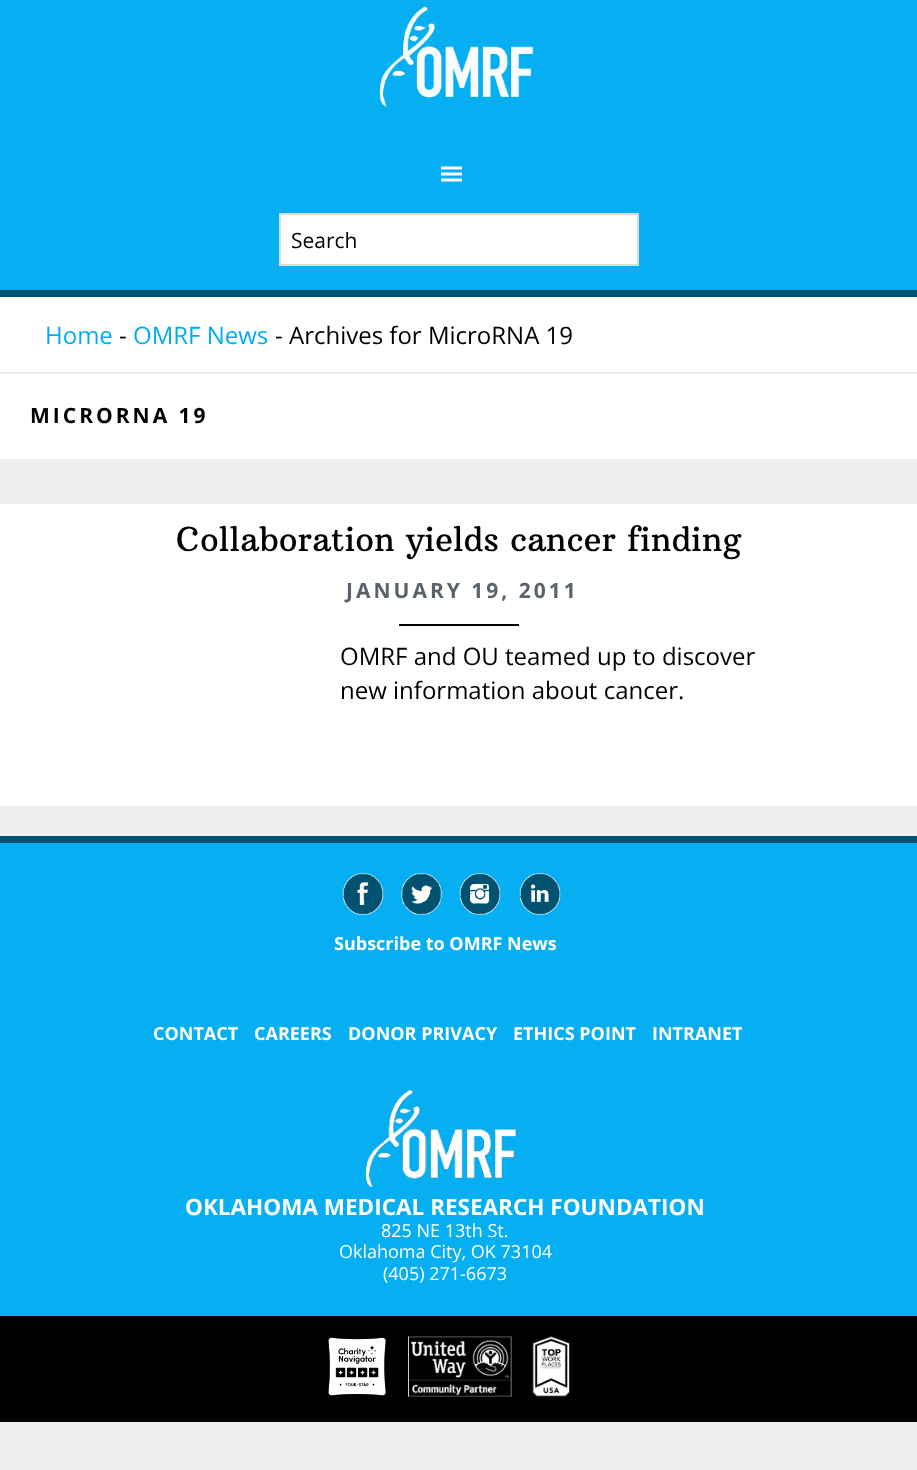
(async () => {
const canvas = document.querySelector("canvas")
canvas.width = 917
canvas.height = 1470
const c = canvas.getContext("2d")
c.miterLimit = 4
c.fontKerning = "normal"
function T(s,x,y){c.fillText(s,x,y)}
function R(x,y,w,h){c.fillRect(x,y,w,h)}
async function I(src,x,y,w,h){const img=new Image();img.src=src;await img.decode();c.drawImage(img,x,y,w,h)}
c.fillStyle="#eee"
R(0,0,917,1470)
c.fillStyle="#05aff2"
R(0,0,917,290)
c.fillStyle="#005270"
R(0,290,917,7)
await I("1.png",379,6,155,101)
await I("2.png",441,166,21,16)
c.fillStyle="#fff"
c.beginPath()
c.rect(280,214,358,51)
c.fill()
c.strokeStyle="#ddd"
c.lineWidth=2
c.stroke()
c.font="21px Open Sans"
c.fillStyle="#000"
T("Search",291,248)
c.fillStyle="#fff"
R(0,297,917,75)
c.font="24px Open Sans"
c.fillStyle="#00aeef"
T("Home",45,344)
c.fillStyle="#000"
T("-",119,344)
c.fillStyle="#00aeef"
T("OMRF News",133,344)
c.fillStyle="#000"
T("- Archives for MicroRNA 19",275,344)
c.fillStyle="#fff"
R(0,374,917,85)
c.letterSpacing="3px"
c.font="bold 21px Open Sans"
c.fillStyle="#000"
T("MICRORNA 19",30,423)
c.fillStyle="#fff"
R(0,504,917,302)
c.letterSpacing="0px"
c.font="33px Arbutus Slab"
c.fillStyle="#000"
T("Collaboration yields cancer finding",176,551)
c.letterSpacing="3px"
c.font="bold 21px Open Sans"
c.fillStyle="#5a636c"
T("JANUARY 19, 2011",346,598)
c.fillStyle="#000"
R(399,624,120,2)
c.letterSpacing="0px"
c.font="24px Open Sans"
T("OMRF and OU teamed up to discover",340,665)
T("new information about cancer.",340,699)
c.fillStyle="#05aff2"
R(0,843,917,473)
c.fillStyle="#005270"
R(0,836,917,7)
await I("3.png",342,873,42,42)
await I("4.png",401,873,41,42)
await I("5.png",459,873,42,42)
await I("6.png",519,873,42,42)
c.font="bold 18px Open Sans"
c.fillStyle="#fff"
T("Subscribe to OMRF News",334,950)
T("CONTACT",153,1040)
T("CAREERS",254,1040)
T("DONOR PRIVACY",348,1040)
T("ETHICS POINT",513,1040)
T("INTRANET",652,1040)
await I("7.png",366,1089,150,99)
c.font="bold 22.5px Open Sans"
T("OKLAHOMA MEDICAL RESEARCH FOUNDATION",185,1215)
c.font="18px Open Sans"
T("825 NE 13th St.",381,1237)
T("Oklahoma City, OK 73104",339,1258)
T("(405) 271-6673",383,1280)
c.fillStyle="#000"
R(0,1316,917,106)
await I("8.png",328,1337,58,59)
await I("9.png",408,1336,104,61)
await I("10.png",532,1336,38,61)
})()
